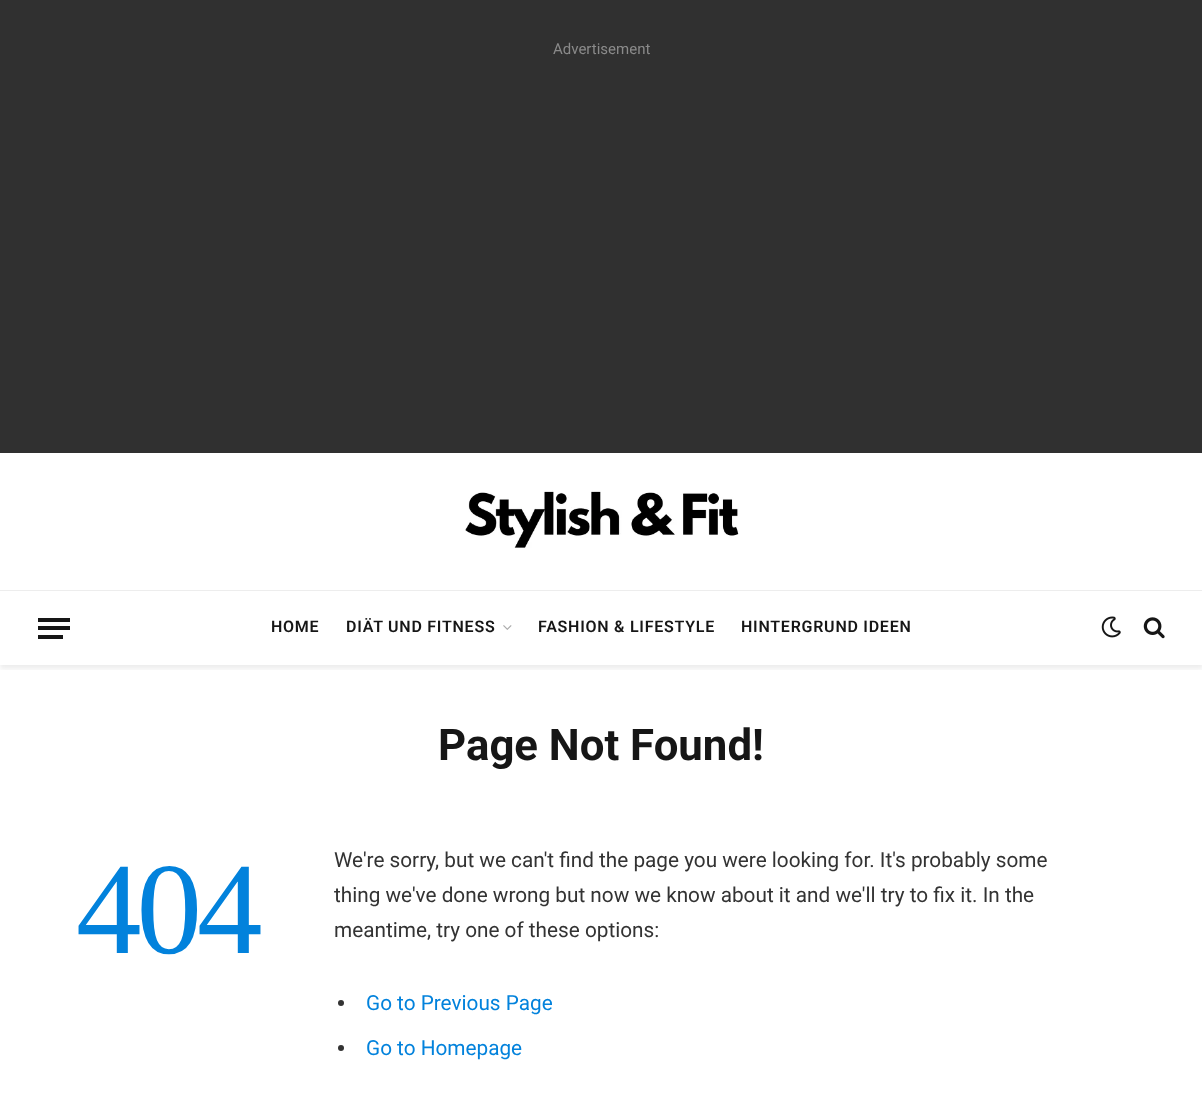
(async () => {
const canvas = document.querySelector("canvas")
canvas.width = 1202
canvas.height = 1095
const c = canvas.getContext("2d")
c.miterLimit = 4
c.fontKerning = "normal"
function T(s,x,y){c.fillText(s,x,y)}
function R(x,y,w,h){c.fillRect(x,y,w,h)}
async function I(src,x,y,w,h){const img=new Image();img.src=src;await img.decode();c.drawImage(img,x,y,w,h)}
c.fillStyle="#fff"
R(0,0,1202,1095)
c.fillStyle="#303030"
R(0,0,1202,453)
c.font="15px Roboto"
c.fillStyle="#8a8a8a"
T("Advertisement",553,54)
c.save()
c.beginPath()
c.rect(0,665,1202,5)
c.clip()
c.fillStyle="#00000012"
c.filter="blur(2.5px)"
c.beginPath()
c.rect(0,456,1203,213)
c.fill()
c.filter="none"
c.restore()
await I("1.png",465,490,274,58)
c.fillStyle="#ededed"
R(0,590,1202,1)
c.fillStyle="#161616"
R(38,635,25,4)
R(38,618,32,4)
R(38,626,32,4)
c.letterSpacing="0.75px"
c.font="600 16px Roboto"
T("HOME",271,632)
T("DIÄT UND FITNESS",346,632)
await I("2.png",503,625,9,5)
T("FASHION & LIFESTYLE",538,632)
T("HINTERGRUND IDEEN",741,632)
await I("3.png",1101,616,20,22)
await I("4.png",1143,617,22,22)
c.letterSpacing="0px"
c.font="bold 43.75px Roboto"
T("Page Not Found!",438,760)
c.letterSpacing="-5px"
c.font="131px Liberation Serif"
c.fillStyle="#0282dc"
T("404",76,953)
c.letterSpacing="0px"
c.font="20.75px Roboto"
c.fillStyle="#333"
T("We're sorry, but we can't find the page you were looking for. It's probably some",334,867)
T("thing we've done wrong but now we know about it and we'll try to fix it. In the",334,902)
T("meantime, try one of these options:",334,937)
c.beginPath()
c.arc(341,1003,3,0,7)
c.fill()
c.fillStyle="#0282dc"
T("Go to Previous Page",366,1010)
c.fillStyle="#333"
c.beginPath()
c.arc(341,1048,3,0,7)
c.fill()
c.fillStyle="#0282dc"
T("Go to Homepage",366,1055)
})()
